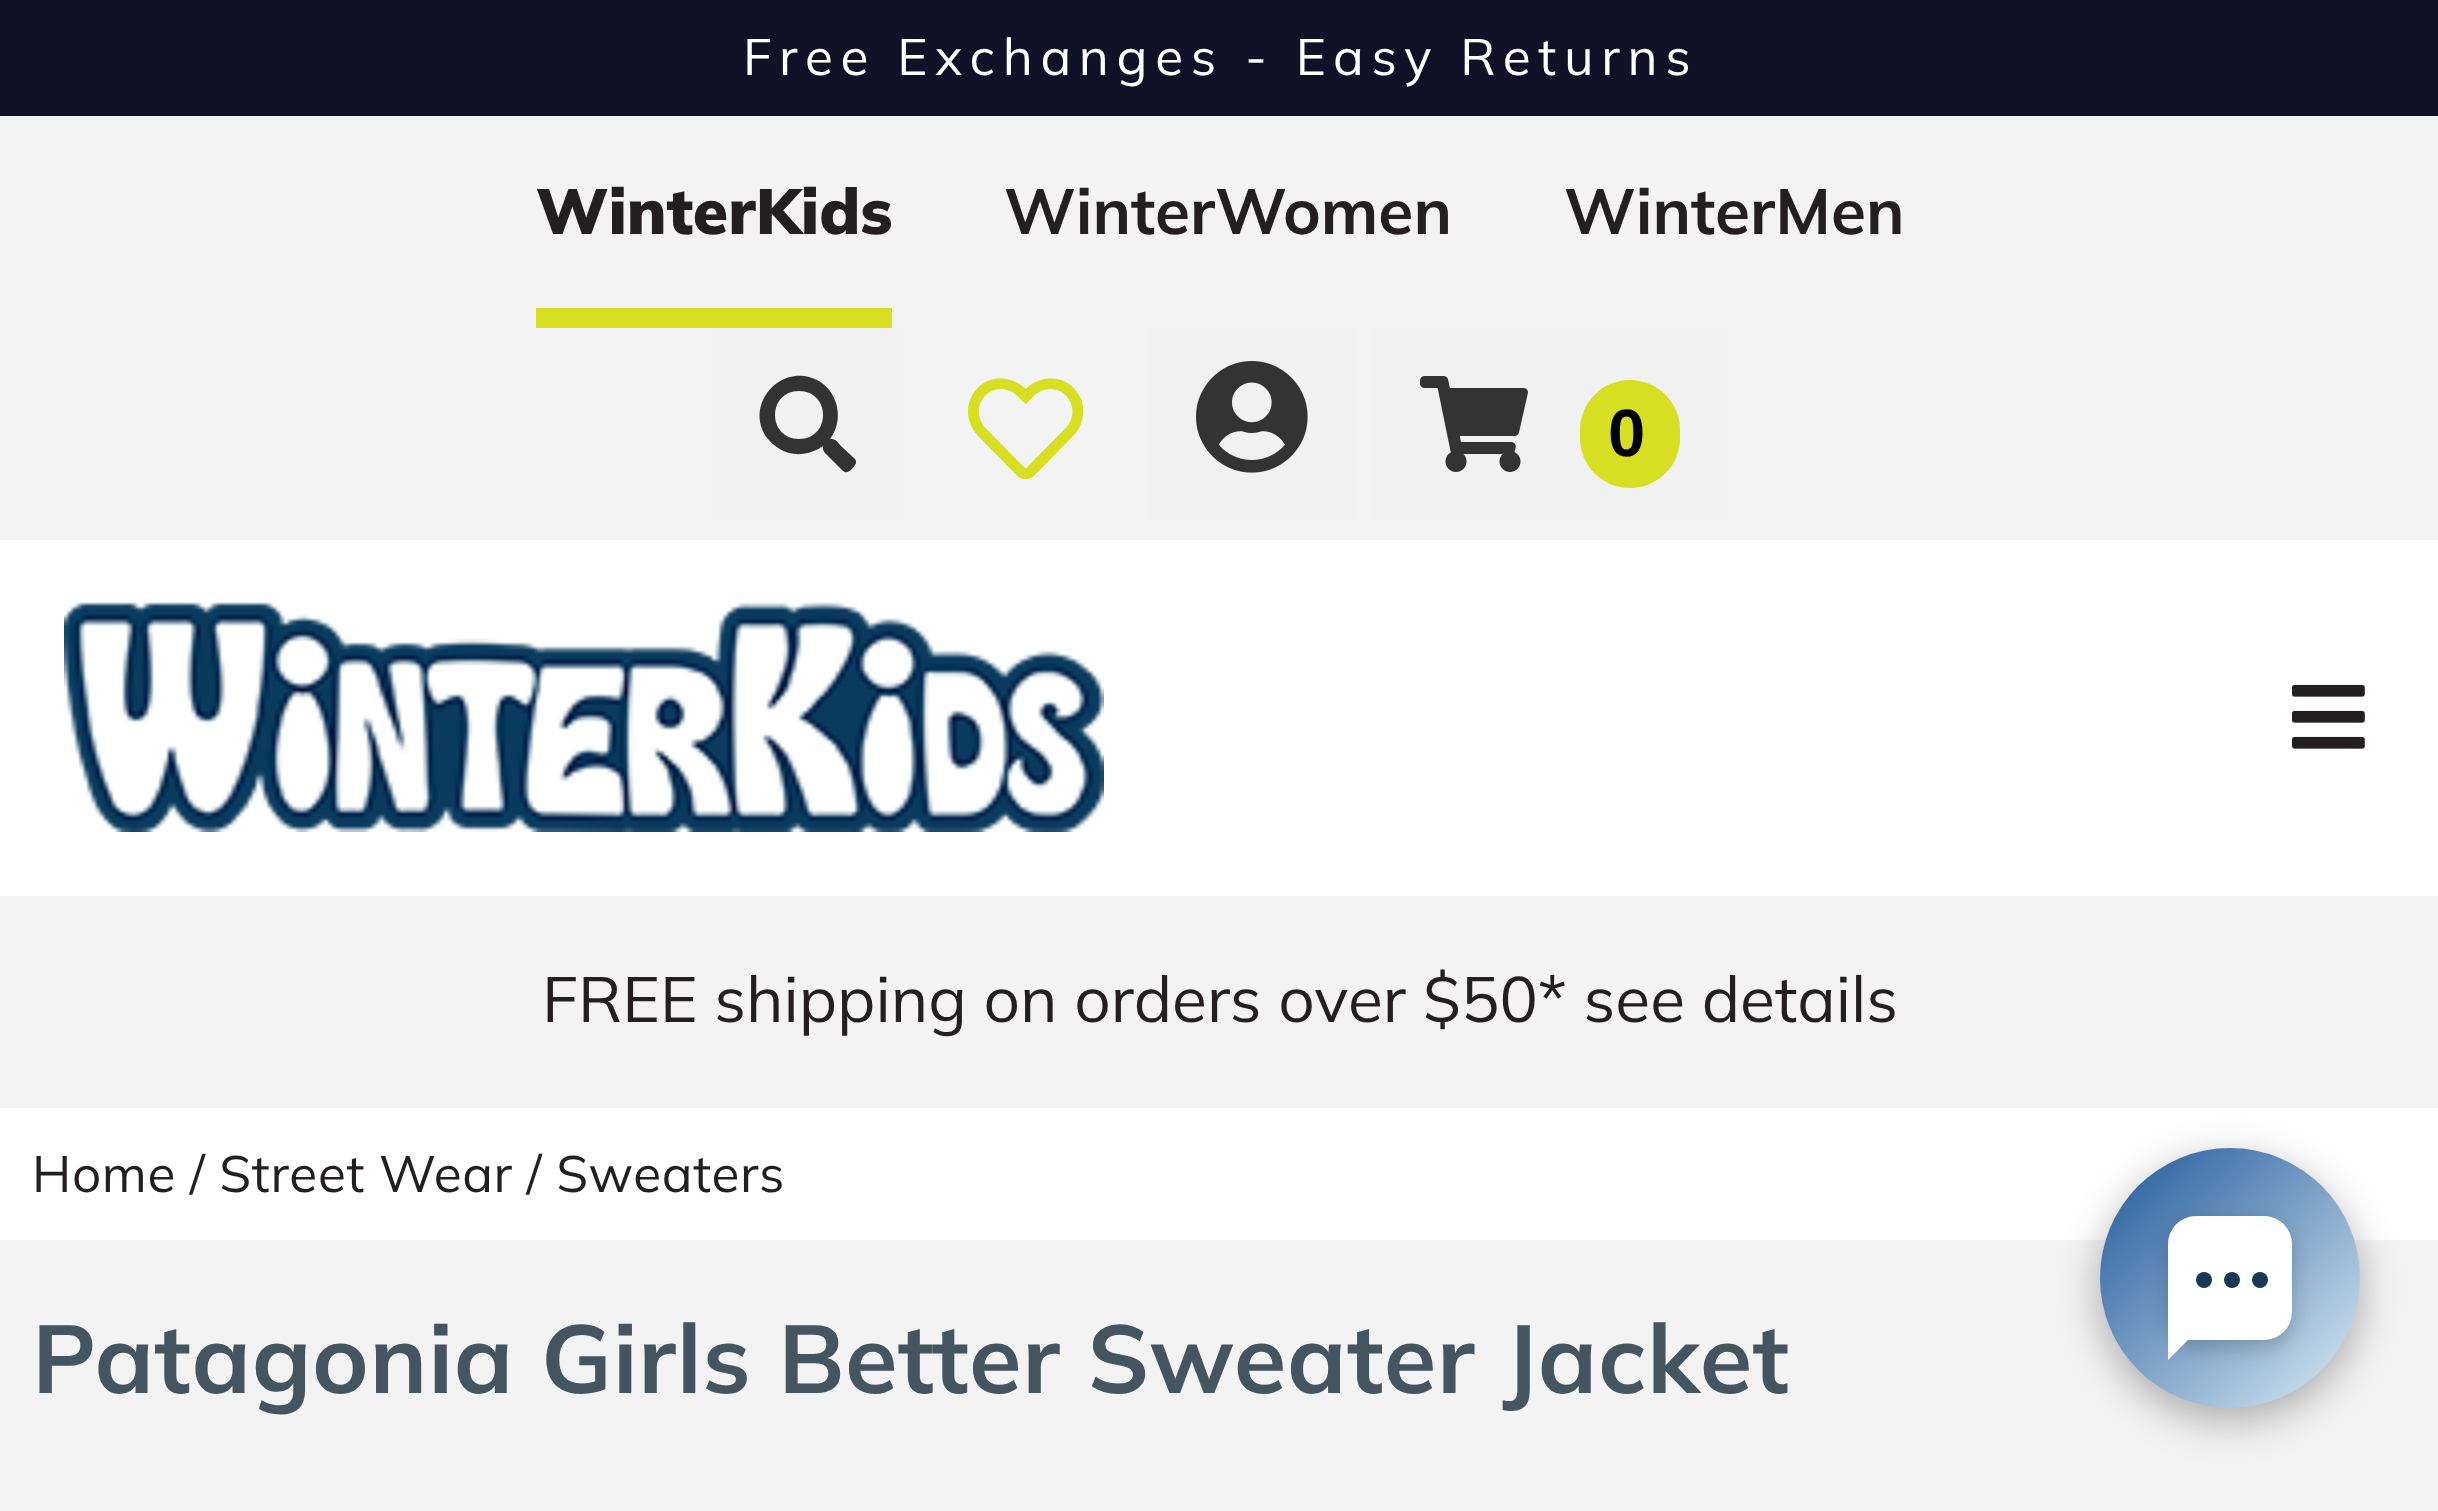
(async () => {
const canvas = document.querySelector("canvas")
canvas.width = 2438
canvas.height = 1511
const c = canvas.getContext("2d")
c.miterLimit = 4
c.fontKerning = "normal"
function T(s,x,y){c.fillText(s,x,y)}
function R(x,y,w,h){c.fillRect(x,y,w,h)}
function Q(x,y,w,h,r){c.beginPath();c.roundRect(x,y,w,h,r);c.fill()}
async function I(src,x,y,w,h){const img=new Image();img.src=src;await img.decode();c.drawImage(img,x,y,w,h)}
let gradient, path
c.fillStyle="#fff"
R(0,0,2438,1511)
c.fillStyle="#101127"
R(0,0,2438,116)
c.letterSpacing="7.7px"
c.font="200 51.25px Mulish"
c.fillStyle="#fff"
T("Free Exchanges - Easy Returns",743,75)
c.fillStyle="#f3f3f4"
R(0,116,2438,424)
c.fillStyle="#d7df23"
R(536,308,356,20)
c.letterSpacing="0px"
c.font="200 64px 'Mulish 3'"
c.fillStyle="#231f20"
T("WinterKids",536,234)
c.font="200 64px 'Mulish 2'"
T("WinterWomen",1004,234)
T("WinterMen",1564,234)
c.fillStyle="#f1f1f1"
R(712,328,192,192)
c.fillStyle="#333"
path = new Path2D("M855 459l-13-12c-6-6-5-8-12-8c14-18 9-46-11-58c-37-21-77 24-51 58c5 6 13 12 21 14c12 3 24 0 34-7c0 5 0 5 4 9l13 13c5 5 6 6 12 1c2-3 6-6 3-10zm-56-20c-32 0-32-48 0-48c32 0 32 48 0 48z")
c.fill(path)
await I("1.png",967,378,117,102)
c.fillStyle="#f1f1f1"
R(1148,328,208,192)
await I("2.png",1196,361,112,112)
R(1372,328,356,192)
await I("3.png",1420,376,108,96)
c.fillStyle="#d7df23"
Q(1580,380,100,108,50)
c.font="bold 67px Liberation Sans"
c.fillStyle="#000"
T("0",1608,456)
await I("4.png",64,602,1040,230)
await I("5.png",2292,684,73,65)
c.fillStyle="#f3f3f4"
R(0,896,2438,212)
c.font="200 64px Mulish"
c.fillStyle="#231f20"
T("FREE shipping on orders over $50* see details",542,1022)
c.letterSpacing="0.65px"
c.font="200 51.25px Mulish"
T("Home / Street Wear / Sweaters",32,1192)
c.fillStyle="#f3f3f4"
R(0,1240,2438,271)
c.font="200 96px 'Mulish 2'"
c.fillStyle="#455560"
T("Patagonia Girls Better Sweater Jacket",32,1393)
c.fillStyle="#0000004d"
c.filter="blur(20px)"
c.beginPath()
c.roundRect(2100,1160,260,260,130)
c.fill()
c.filter="none"
gradient = c.createLinearGradient(2100,1148,2360,1408)
gradient.addColorStop(0,"#1e5799")
gradient.addColorStop(1,"#dbecf5")
c.fillStyle = gradient
c.beginPath()
c.arc(2230,1278,130,0,7)
c.fill()
c.fillStyle="#00000033"
c.filter="blur(10px)"
c.beginPath()
c.roundRect(2168,1224,124,124,28)
c.fill()
c.filter="none"
c.fillStyle="#fff"
c.beginPath()
c.roundRect(2168,1216,124,124,[28,28,28,0])
c.fill()
c.fillStyle="#193856"
c.beginPath()
c.arc(2204,1280,8,0,7)
c.fill()
c.beginPath()
c.arc(2232,1280,8,0,7)
c.fill()
c.beginPath()
c.arc(2260,1280,8,0,7)
c.fill()
c.fillStyle="#fff"
path = new Path2D("M2168 1360v-40h40z")
c.fill(path)
})()
